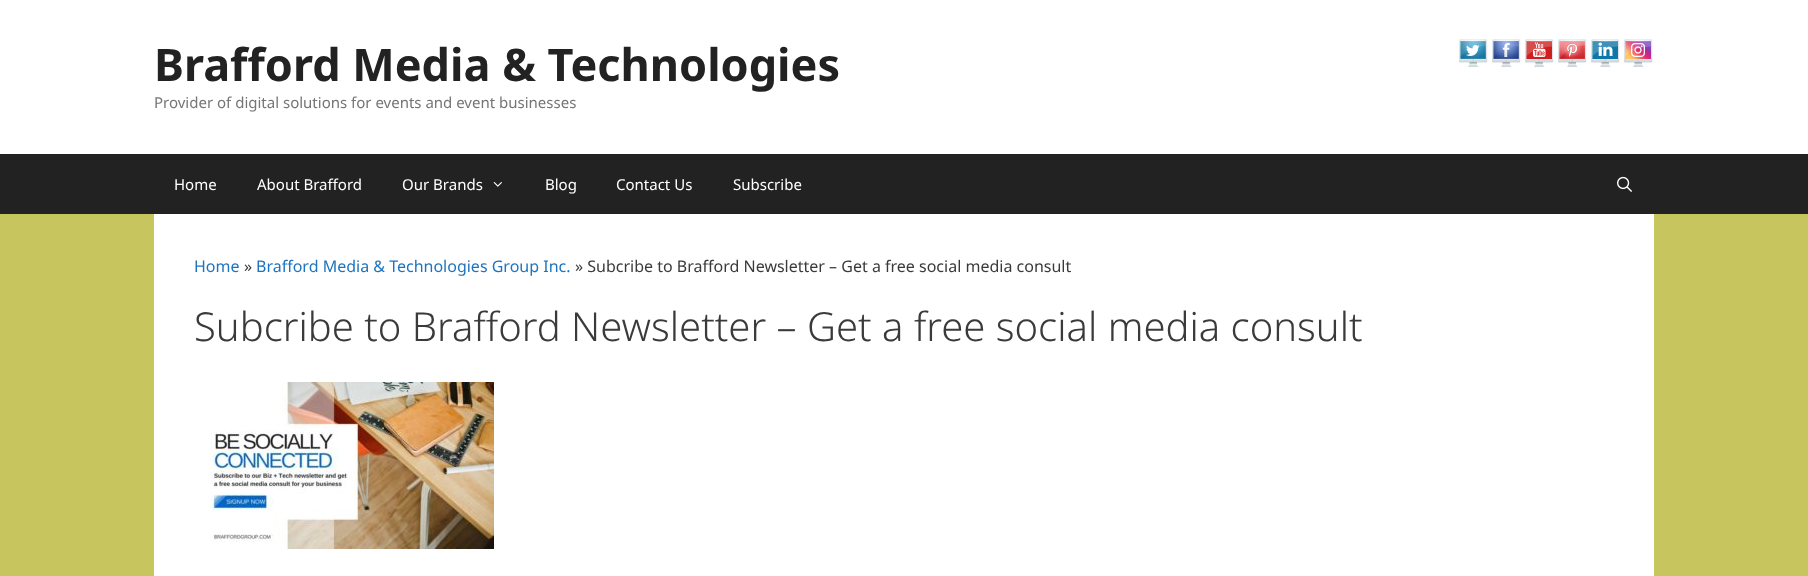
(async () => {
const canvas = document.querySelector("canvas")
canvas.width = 1808
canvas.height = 576
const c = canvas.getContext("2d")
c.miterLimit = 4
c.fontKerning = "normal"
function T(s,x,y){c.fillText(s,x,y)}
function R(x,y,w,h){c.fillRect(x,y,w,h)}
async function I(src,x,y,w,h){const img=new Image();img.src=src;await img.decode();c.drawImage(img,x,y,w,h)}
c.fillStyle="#c6c55e"
R(0,0,1808,576)
c.fillStyle="#fff"
R(0,0,1808,154)
c.font="bold 45px Noto Sans"
c.fillStyle="#222"
T("Brafford Media & Technologies",154,81)
c.font="15px Noto Sans"
c.fillStyle="#757575"
T("Provider of digital solutions for events and event businesses",154,108)
await I("1.png",1459,39,29,28)
await I("2.png",1492,39,29,28)
await I("3.png",1525,39,29,28)
await I("4.png",1558,39,29,28)
await I("5.png",1591,39,29,28)
await I("6.png",1624,39,29,28)
c.fillStyle="#222"
R(0,154,1808,60)
c.fillStyle="#fff"
T("Home",174,190)
T("About Brafford",257,190)
T("Our Brands",402,190)
await I("7.png",493,182,9,5)
T("Blog",545,190)
T("Contact Us",616,190)
T("Subscribe",733,190)
await I("8.png",1617,176,15,16)
R(154,214,1500,362)
c.font="16px Noto Sans"
c.fillStyle="#1e73be"
T("Home",194,272)
c.fillStyle="#3a3a3a"
T("»",244,272)
c.fillStyle="#1e73be"
T("Brafford Media & Technologies Group Inc.",256,272)
c.fillStyle="#3a3a3a"
T("» Subcribe to Brafford Newsletter – Get a free social media consult",575,272)
c.font="300 40px Noto Sans"
T("Subcribe to Brafford Newsletter – Get a free social media consult",194,341)
await I("9.png",210,382,284,167)
})()
